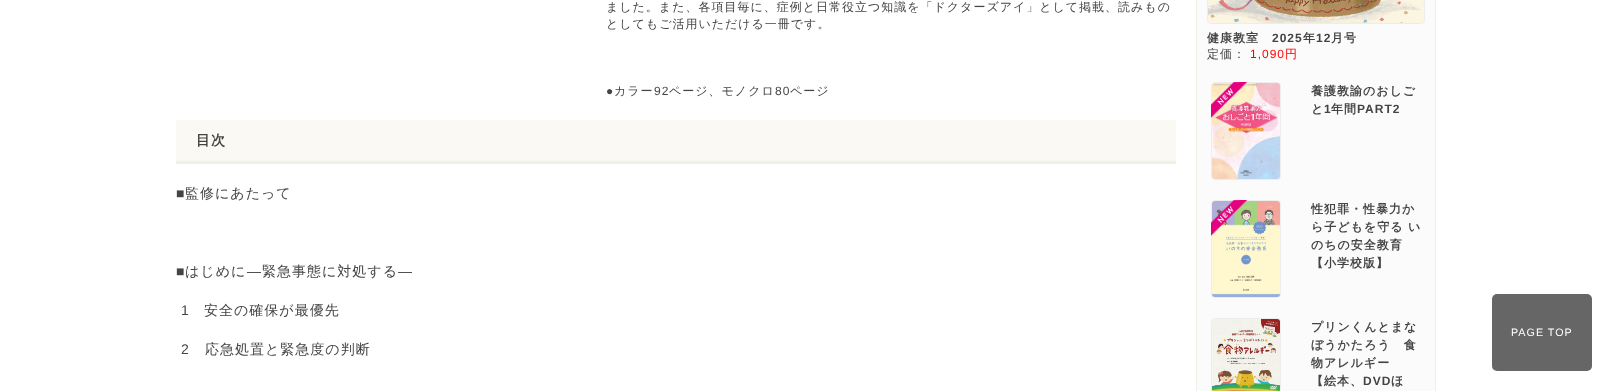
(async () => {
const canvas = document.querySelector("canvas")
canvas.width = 1612
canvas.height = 391
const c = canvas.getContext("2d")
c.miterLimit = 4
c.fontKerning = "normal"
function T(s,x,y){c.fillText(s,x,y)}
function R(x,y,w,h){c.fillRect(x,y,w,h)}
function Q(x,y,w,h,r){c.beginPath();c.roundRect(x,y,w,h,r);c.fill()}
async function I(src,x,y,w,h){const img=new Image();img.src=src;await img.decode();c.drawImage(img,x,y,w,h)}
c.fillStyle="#fff"
R(0,0,1612,391)
c.letterSpacing="1px"
c.font="500 12px WenQuanYi Zen Hei"
c.fillStyle="#444"
T("ました。また、各項目毎に、症例と日常役立つ知識を「ドクターズアイ」として掲載、読みもの",606,11)
T("としてもご活用いただける一冊です。",606,28)
c.font="12px Liberation Sans"
T("●",606,95)
c.font="500 12px WenQuanYi Zen Hei"
T("カラー",614,95)
c.font="12px Liberation Sans"
T("92",654,95)
c.font="500 12px WenQuanYi Zen Hei"
T("ページ、モノクロ",669,95)
c.font="12px Liberation Sans"
T("80",775,95)
c.font="500 12px WenQuanYi Zen Hei"
T("ページ",790,95)
c.fillStyle="#faf9f3"
R(176,120,1000,41)
c.fillStyle="#f2f0e6"
R(176,161,1000,3)
c.font="bold 14px WenQuanYi Zen Hei"
c.fillStyle="#444"
T("目次",196,145)
c.font="14px Liberation Sans"
T("■",176,198)
c.font="500 14px WenQuanYi Zen Hei"
T("監修にあたって",185,198)
c.font="14px Liberation Sans"
T("■",176,276)
c.font="500 14px WenQuanYi Zen Hei"
T("はじめに",185,276)
c.font="14px Liberation Sans"
T("―",247,276)
c.font="500 14px WenQuanYi Zen Hei"
T("緊急事態に対処する",262,276)
c.font="14px Liberation Sans"
T("―",398,276)
T("1",181,315)
c.font="500 14px WenQuanYi Zen Hei"
T("安全の確保が最優先",204,315)
c.font="14px Liberation Sans"
T("2",181,354)
c.font="500 14px WenQuanYi Zen Hei"
T("応急処置と緊急度の判断",205,354)
c.fillStyle="#fbfbfb"
c.beginPath()
c.rect(1196.5,-.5,239,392)
c.fill()
c.strokeStyle="#f2f0e6"
c.stroke()
c.beginPath()
c.roundRect(1207.5,-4.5,217,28,3.5)
c.strokeStyle="#ededed"
c.stroke()
await I("1.png",1208,0,216,23)
c.font="bold 12px WenQuanYi Zen Hei"
c.fillStyle="#444"
T("健康教室",1207,42)
c.font="bold 12px Liberation Sans"
T("2025",1272,42)
c.font="bold 12px WenQuanYi Zen Hei"
T("年",1303,42)
c.font="bold 12px Liberation Sans"
T("12",1316,42)
c.font="bold 12px WenQuanYi Zen Hei"
T("月号",1331,42)
c.font="500 12px WenQuanYi Zen Hei"
T("定価：",1207,58)
c.font="12px Liberation Sans"
c.fillStyle="#f00"
T("1,090",1250,58)
c.font="500 12px WenQuanYi Zen Hei"
T("円",1285,58)
c.beginPath()
c.roundRect(1211.5,82.5,69,97,3.5)
c.stroke()
await I("2.png",1212,83,68,96)
await I("3.png",1211,82,36,36)
c.font="bold 12px WenQuanYi Zen Hei"
c.fillStyle="#444"
T("養護教諭のおしご",1311,95)
T("と",1311,113)
c.font="bold 12px Liberation Sans"
T("1",1324,113)
c.font="bold 12px WenQuanYi Zen Hei"
T("年間",1331,113)
c.font="bold 12px Liberation Sans"
T("PART2",1357,113)
c.beginPath()
c.roundRect(1211.5,200.5,69,97,3.5)
c.stroke()
await I("4.png",1212,201,68,96)
await I("5.png",1211,200,36,36)
c.font="bold 12px WenQuanYi Zen Hei"
T("性犯罪・性暴力か",1311,213)
T("ら子どもを守る い",1311,231)
T("のちの安全教育",1311,249)
T("【小学校版】",1311,267)
c.beginPath()
c.roundRect(1211.5,318.5,69,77,3.5)
c.stroke()
await I("6.png",1212,319,68,72)
T("プリンくんとまな",1311,331)
T("ぼうかたろう　食",1311,349)
T("物アレルギー",1311,367)
T("【絵本、",1311,385)
c.font="bold 12px Liberation Sans"
T("DVD",1363,385)
c.font="bold 12px WenQuanYi Zen Hei"
T("ほ",1391,385)
c.fillStyle="#666"
Q(1492,294,100,77,5)
c.font="10.75px Liberation Sans"
c.fillStyle="#fff"
T("PAGE TOP",1511,336)
})()
